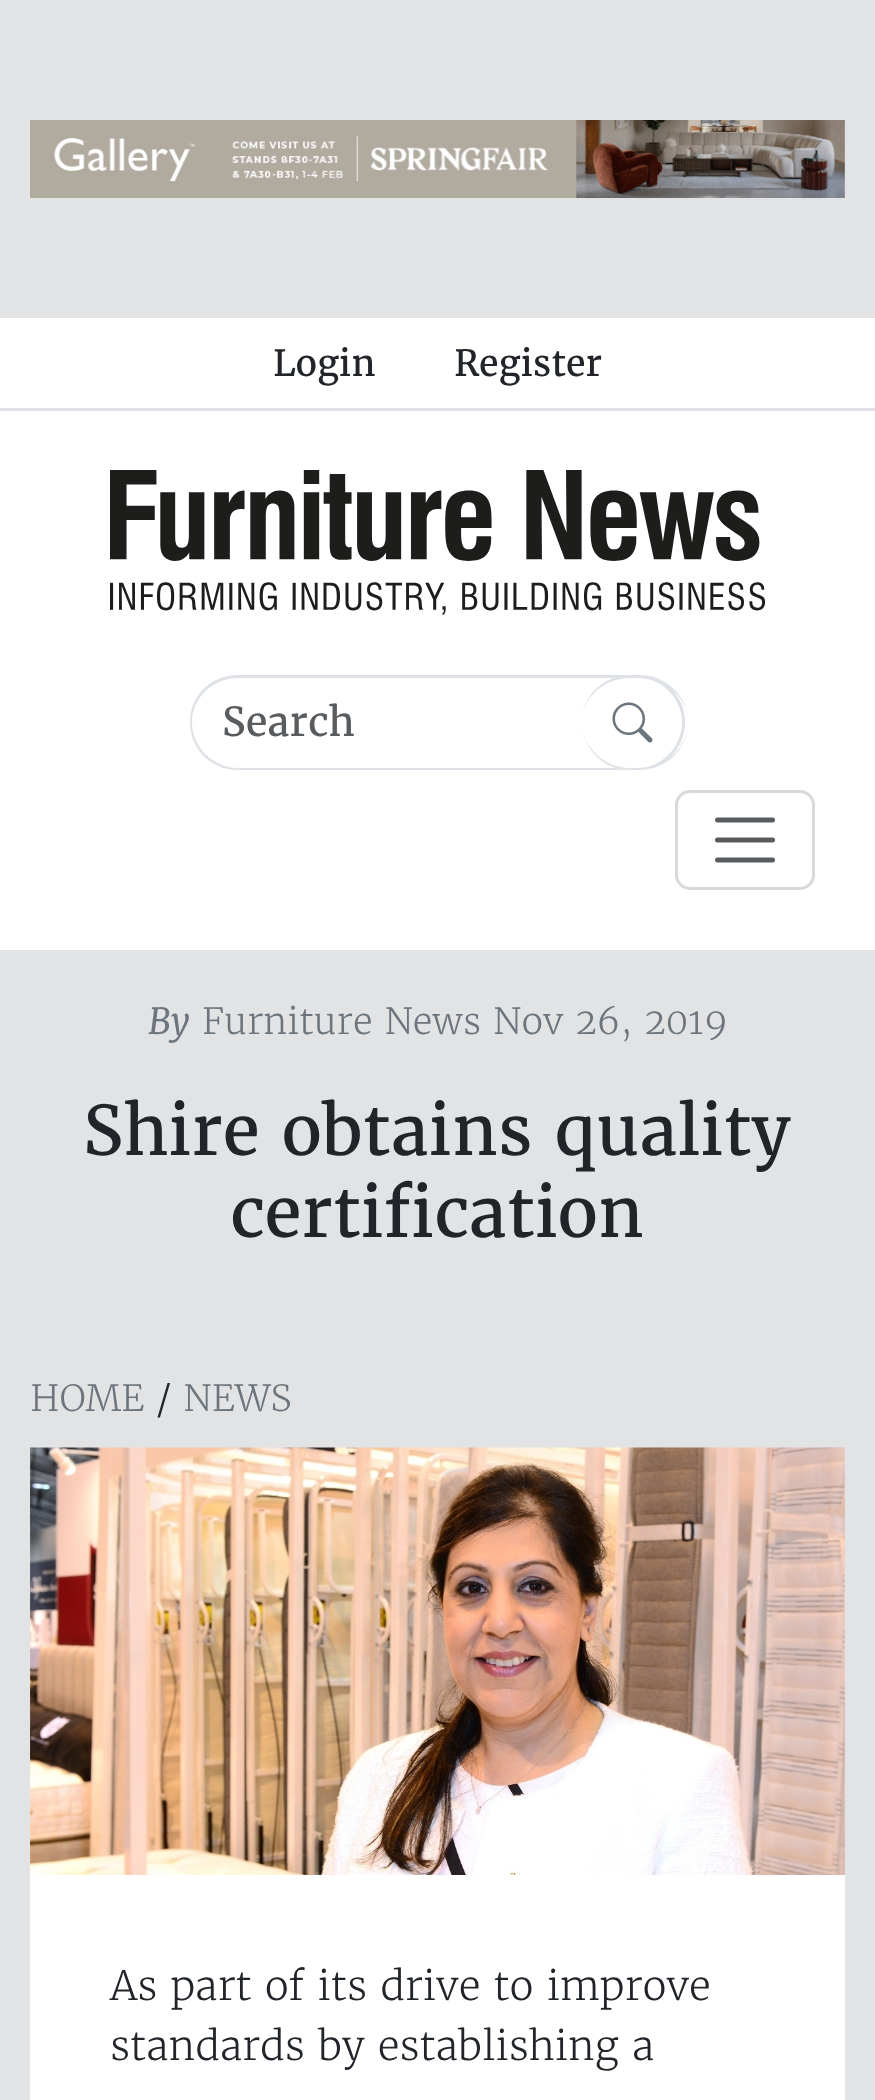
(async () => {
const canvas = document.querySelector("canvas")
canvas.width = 875
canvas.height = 2100
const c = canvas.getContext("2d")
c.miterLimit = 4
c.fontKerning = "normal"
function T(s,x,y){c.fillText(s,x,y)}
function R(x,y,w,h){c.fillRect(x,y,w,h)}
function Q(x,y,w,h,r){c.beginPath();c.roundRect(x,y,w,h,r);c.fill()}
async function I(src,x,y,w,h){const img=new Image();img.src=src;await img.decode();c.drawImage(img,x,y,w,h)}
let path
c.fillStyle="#e2e3e5"
R(0,0,875,2100)
await I("1.png",30,120,815,78)
c.fillStyle="#fff"
R(0,318,875,632)
c.fillStyle="#dee2e6"
R(0,408,875,3)
c.font="36px Merriweather"
c.fillStyle="#212529"
T("Login",273,376)
T("Register",454,376)
await I("2.png",110,470,655,145)
c.fillStyle="#dee2e6"
path = new Path2D("M238 675h402c26 0 48 21 48 47c0 27-22 48-48 48h-402c-27 0-48-21-48-48c0-26 21-47 48-47zm0 3h402c26 0 48 20 48 44c0 25-22 46-48 46h-402c-25 0-46-21-46-46c0-24 21-44 46-44z")
c.fill(path,"evenodd")
c.font="40px Merriweather"
c.fillStyle="#595c5f"
T("Search",222,736)
c.fillStyle="#fff"
Q(583,675,102,95,47.5)
c.fillStyle="#dee2e6"
path = new Path2D("M630 675h8c26 0 47 21 47 47c0 27-21 48-47 48h-8c-26 0-48-21-48-48c0-26 22-47 48-47zm0 3h8c24 0 44 20 44 44c0 25-20 46-44 46h-8c-26 0-48-21-48-46c0-24 22-44 48-44z")
c.fill(path,"evenodd")
await I("3.png",612,702,41,41)
c.beginPath()
c.roundRect(676.5,791.5,137,97,13.5)
c.strokeStyle="#d9d9d9"
c.lineWidth=3
c.stroke()
path = new Path2D("M717.5 820h55m-55 20h55m-55 20h55")
c.strokeStyle="#595c5f"
c.lineWidth=5
c.lineCap="round"
c.stroke(path)
c.font="italic 36px Merriweather"
c.fillStyle="#6c757d"
T("By",148,1034)
c.font="300 36px Merriweather"
T("Furniture News Nov 26, 2019",202,1034)
c.font="68.1px Merriweather"
c.fillStyle="#212529"
T("Shire obtains quality",83,1155)
T("certification",230,1237)
c.font="300 36px Merriweather"
c.fillStyle="#6c757d"
T("HOME",30,1411)
c.fillStyle="#212529"
T("/",156,1411)
c.fillStyle="#6c757d"
T("NEWS",183,1411)
await I("4.png",30,1447,815,428)
c.fillStyle="#fff"
R(30,1875,815,225)
c.font="300 40px Merriweather"
c.fillStyle="#212529"
T("As part of its drive to improve",110,2000)
T("standards by establishing a",110,2060)
})()
